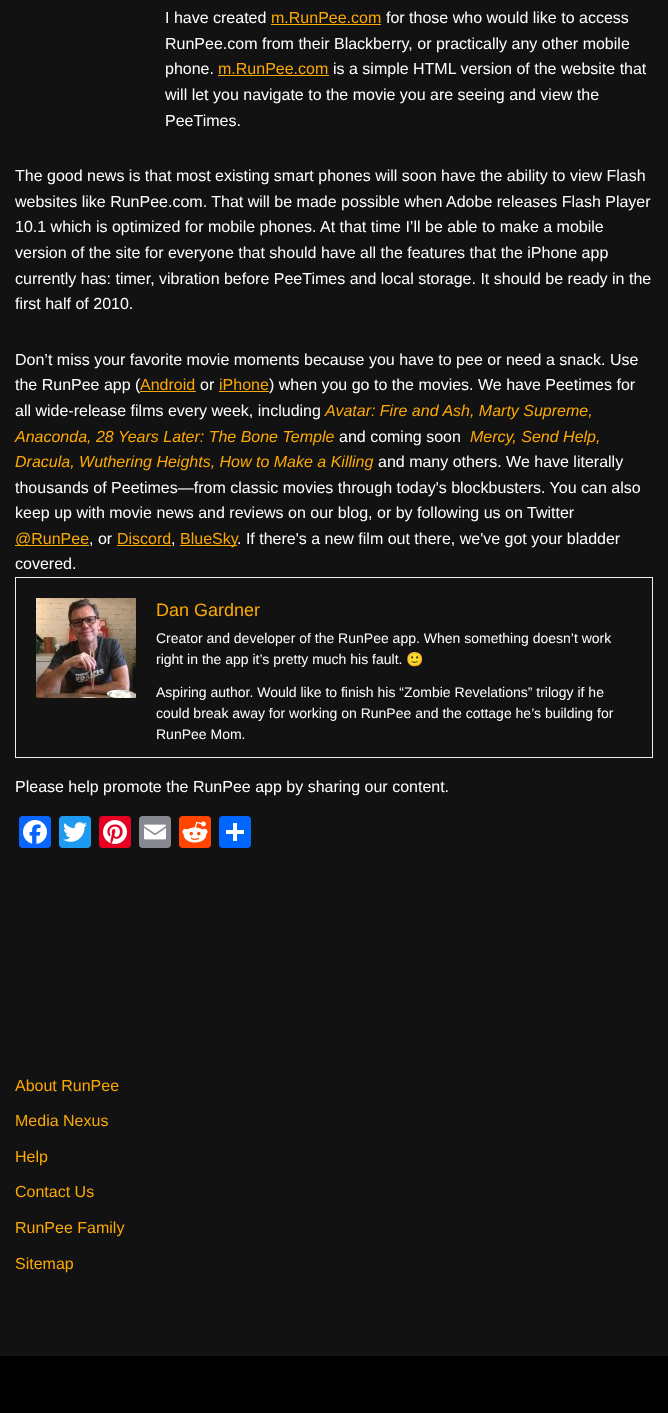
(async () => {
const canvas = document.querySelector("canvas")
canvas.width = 668
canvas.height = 1413
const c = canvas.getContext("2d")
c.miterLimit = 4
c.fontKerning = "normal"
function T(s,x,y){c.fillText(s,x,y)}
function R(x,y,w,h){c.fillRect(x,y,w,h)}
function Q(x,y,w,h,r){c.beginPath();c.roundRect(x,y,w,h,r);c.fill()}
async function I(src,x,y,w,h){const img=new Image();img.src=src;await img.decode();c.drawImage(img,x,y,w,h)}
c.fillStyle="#121212"
R(0,0,668,1413)
c.font="16px Liberation Sans"
c.fillStyle="#fff"
T("I have created",165,23)
c.fillStyle="#fca905"
T("m.RunPee.com",271,23)
R(271,24,110,1)
c.fillStyle="#fff"
T("for those who would like to access",386,23)
T("RunPee.com from their Blackberry, or practically any other mobile",165,49)
T("phone.",165,74)
c.fillStyle="#fca905"
T("m.RunPee.com",218,74)
R(218,75,111,1)
c.fillStyle="#fff"
T("is a simple HTML version of the website that",333,74)
T("will let you navigate to the movie you are seeing and view the",165,100)
T("PeeTimes.",165,126)
T("The good news is that most existing smart phones will soon have the ability to view Flash",15,181)
T("websites like RunPee.com. That will be made possible when Adobe releases Flash Player",15,207)
T("10.1 which is optimized for mobile phones. At that time I’ll be able to make a mobile",15,232)
T("version of the site for everyone that should have all the features that the iPhone app",15,258)
T("currently has: timer, vibration before PeeTimes and local storage. It should be ready in the",15,284)
T("first half of 2010.",15,309)
T("Don’t miss your favorite movie moments because you have to pee or need a snack. Use",15,365)
T("the RunPee app (",15,390)
c.fillStyle="#fca905"
T("Android",140,390)
R(140,391,56,1)
c.fillStyle="#fff"
T("or",200,390)
c.fillStyle="#fca905"
T("iPhone",219,390)
R(219,391,50,1)
c.fillStyle="#fff"
T(") when you go to the movies. We have Peetimes for",269,390)
T("all wide-release films every week, including",15,416)
c.font="italic 16px Liberation Sans"
c.fillStyle="#fca905"
T("Avatar: Fire and Ash, Marty Supreme,",325,416)
T("Anaconda, 28 Years Later: The Bone Temple",15,442)
c.font="16px Liberation Sans"
c.fillStyle="#fff"
T("and coming soon",339,442)
c.font="italic 16px Liberation Sans"
c.fillStyle="#fca905"
T("Mercy, Send Help,",470,442)
T("Dracula, Wuthering Heights, How to Make a Killing",15,467)
c.font="16px Liberation Sans"
c.fillStyle="#fff"
T("and many others. We have literally",378,467)
T("thousands of Peetimes—from classic movies through today's blockbusters. You can also",15,493)
T("keep up with movie news and reviews on our blog, or by following us on Twitter",15,518)
c.fillStyle="#fca905"
R(15,545,74,1)
T("@RunPee",15,544)
c.fillStyle="#fff"
T(", or",89,544)
c.fillStyle="#fca905"
T("Discord",117,544)
R(117,545,54,1)
c.fillStyle="#fff"
T(",",171,544)
c.fillStyle="#fca905"
R(180,545,57,1)
T("BlueSky",180,544)
c.fillStyle="#fff"
T(". If there's a new film out there, we've got your bladder",237,544)
T("covered.",15,569)
c.strokeStyle="#eee"
c.strokeRect(15.5,577.5,637,180)
await I("1.png",36,598,100,100)
c.font="18px Liberation Sans"
c.fillStyle="#fca905"
T("Dan Gardner",156,616)
c.font="14px Liberation Sans"
c.fillStyle="#fff"
T("Creator and developer of the RunPee app. When something doesn’t work",156,643)
T("right in the app it’s pretty much his fault.",156,664)
c.font="14px Noto Color Emoji"
T("🙂",406,664)
c.font="14px Liberation Sans"
T("Aspiring author. Would like to finish his “Zombie Revelations” trilogy if he",156,697)
T("could break away for working on RunPee and the cottage he’s building for",156,718)
T("RunPee Mom.",156,739)
c.font="16px Liberation Sans"
T("Please help promote the RunPee app by sharing our content.",15,792)
c.fillStyle="#0866ff"
Q(19,816,32,32,4)
await I("2.png",23,820,24,24)
c.fillStyle="#1d9bf0"
Q(59,816,32,32,4)
await I("3.png",63,822,24,20)
c.fillStyle="#e60023"
Q(99,816,32,32,4)
await I("4.png",103,820,24,24)
c.fillStyle="#888990"
Q(139,816,32,32,4)
await I("5.png",144,824,22,16)
c.fillStyle="#ff4500"
Q(179,816,32,32,4)
await I("6.png",182,821,26,22)
c.fillStyle="#0166ff"
Q(219,816,32,32,4)
c.fillStyle="#fff"
R(233,823,4,18)
R(226,830,18,4)
c.fillStyle="#fca905"
T("About RunPee",15,1091)
T("Media Nexus",15,1126)
T("Help",15,1162)
T("Contact Us",15,1197)
T("RunPee Family",15,1233)
T("Sitemap",15,1269)
c.fillStyle="#000"
R(0,1356,668,57)
})()
